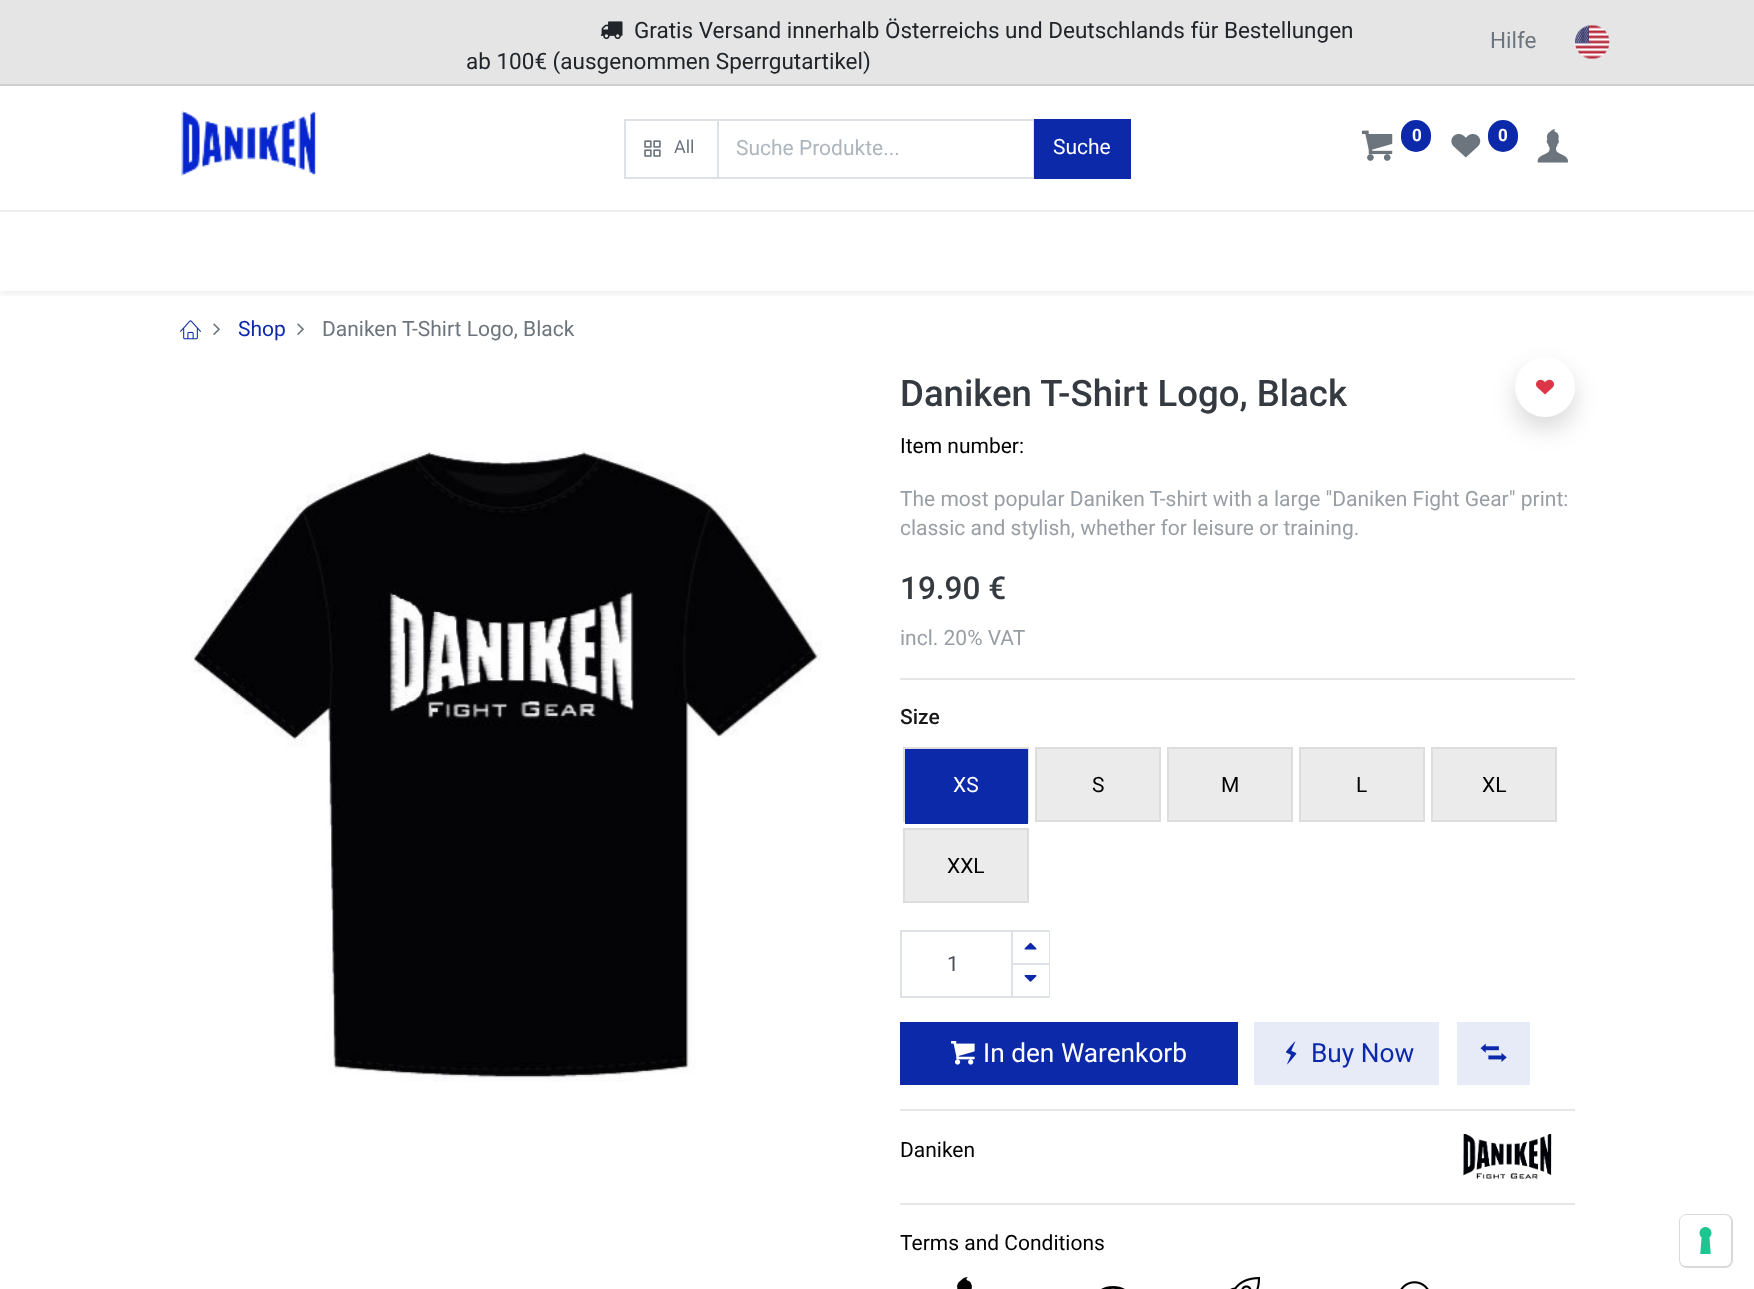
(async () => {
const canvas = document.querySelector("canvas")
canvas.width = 1754
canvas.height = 1289
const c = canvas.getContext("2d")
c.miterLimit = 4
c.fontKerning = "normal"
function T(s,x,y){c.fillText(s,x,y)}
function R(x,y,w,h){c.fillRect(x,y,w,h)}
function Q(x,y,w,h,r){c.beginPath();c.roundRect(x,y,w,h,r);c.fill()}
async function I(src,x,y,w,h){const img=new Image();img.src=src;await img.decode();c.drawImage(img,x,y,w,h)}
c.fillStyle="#fff"
R(0,0,1754,1289)
c.fillStyle="#e5e5e5"
R(0,0,1754,84)
c.fillStyle="#cdcece"
R(0,84,1754,2)
await I("1.png",600,21,23,19)
c.font="22.5px Roboto"
c.fillStyle="#212529"
T("Gratis Versand innerhalb Österreichs und Deutschlands für Bestellungen",634,38)
T("ab 100€ (ausgenommen Sperrgutartikel)",466,69)
c.fillStyle="#6c757d"
T("Hilfe",1490,48)
await I("2.png",1575,25,35,34)
c.fillStyle="#edeeef"
R(0,210,1754,2)
await I("3.png",181,110,135,66)
await I("4.png",1362,130,31,31)
c.fillStyle="#0c29aa"
Q(1401,120,30,32,15)
c.font="bold 17px Roboto"
c.fillStyle="#fff"
T("0",1412,141)
await I("5.png",1451,134,30,24)
c.fillStyle="#0c29aa"
Q(1488,120,30,32,15)
c.fillStyle="#fff"
T("0",1498,141)
await I("6.png",1537,129,31,34)
c.strokeStyle="#dee2e6"
c.lineWidth=2
c.strokeRect(718,120,316,58)
c.strokeRect(625,120,93,58)
await I("7.png",644,140,17,17)
c.font="18px Roboto"
c.fillStyle="#6c757d"
T("All",674,153)
c.font="21px Roboto"
c.fillStyle="#adb5bd"
T("Suche Produkte...",736,155)
c.fillStyle="#0c29aa"
R(1034,119,97,60)
c.fillStyle="#fff"
T("Suche",1053,154)
c.save()
c.beginPath()
c.rect(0,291,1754,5)
c.clip()
c.fillStyle="#00000012"
c.filter="blur(3px)"
c.beginPath()
c.rect(0,215,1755,79)
c.fill()
c.filter="none"
c.restore()
await I("8.png",180,320,21,20)
await I("9.png",213,323,7,12)
c.fillStyle="#0c29aa"
T("Shop",238,336)
await I("9.png",297,323,7,12)
c.fillStyle="#6c757d"
T("Daniken T-Shirt Logo, Black",322,336)
await I("10.png",191,451,631,631)
c.font="500 36.6px Roboto"
c.fillStyle="#343a40"
T("Daniken T-Shirt Logo, Black",900,406)
c.font="21px Roboto"
c.fillStyle="#000"
T("Item number:",900,453)
c.fillStyle="#989ea4"
T("The most popular Daniken T-shirt with a large \"Daniken Fight Gear\" print:",900,506)
T("classic and stylish, whether for leisure or training.",900,535)
c.font="500 31.5px Roboto"
c.fillStyle="#343a40"
T("19.90 €",900,599)
c.fillStyle="#00000026"
c.filter="blur(12px)"
c.beginPath()
c.roundRect(1515,369,60,60,30)
c.fill()
c.filter="none"
c.fillStyle="#fff"
c.beginPath()
c.arc(1545,387,30,0,7)
c.fill()
await I("11.png",1536,379,18,16)
c.fillStyle="#e7eaf7"
R(1457,1022,73,63)
await I("12.png",1480,1043,27,19)
c.font="21px Roboto"
c.fillStyle="#989ea4"
T("incl. 20% VAT",900,645)
c.fillStyle="#e6e6e6"
R(900,678,675,2)
c.font="500 21px Roboto"
c.fillStyle="#18181b"
T("Size",900,724)
c.strokeStyle="#ddd"
c.strokeRect(904,748,124,73)
c.fillStyle="#0c29aa"
R(905,749,123,75)
c.font="21px Roboto"
c.fillStyle="#fff"
T("XS",953,792)
c.fillStyle="#ebebeb"
c.beginPath()
c.rect(1036,748,124,73)
c.fill()
c.stroke()
c.fillStyle="#000"
T("S",1092,792)
c.fillStyle="#ebebeb"
c.beginPath()
c.rect(1168,748,124,73)
c.fill()
c.stroke()
c.fillStyle="#000"
T("M",1221,792)
c.fillStyle="#ebebeb"
c.beginPath()
c.rect(1300,748,124,73)
c.fill()
c.stroke()
c.fillStyle="#000"
T("L",1356,792)
c.fillStyle="#ebebeb"
c.beginPath()
c.rect(1432,748,124,73)
c.fill()
c.stroke()
c.fillStyle="#000"
T("XL",1482,792)
c.fillStyle="#ebebeb"
c.beginPath()
c.rect(904,829,124,73)
c.fill()
c.stroke()
c.fillStyle="#000"
T("XXL",947,873)
c.strokeStyle="#dee2e6"
c.strokeRect(901,931,148,66)
c.fillStyle="#495057"
T("1",947,971)
c.fillStyle="#fff"
R(1048,932,1,31)
c.fillStyle="#dee2e6"
R(1011,963,2,33)
R(1011,963,38,2)
R(1011,932,2,33)
await I("13.png",1024,942,13,8)
c.fillStyle="#fff"
R(1048,965,1,31)
await I("14.png",1024,975,13,7)
c.fillStyle="#0c29aa"
R(900,1022,338,63)
await I("15.png",951,1041,24,24)
c.font="26.25px Roboto"
c.fillStyle="#fff"
T("In den Warenkorb",983,1062)
c.fillStyle="#e7eaf7"
R(1254,1022,185,63)
await I("16.png",1285,1041,12,24)
c.fillStyle="#0c29aa"
T("Buy Now",1311,1062)
c.fillStyle="#e6e6e6"
R(900,1109,675,2)
c.font="21px Roboto"
c.fillStyle="#000"
T("Daniken",900,1157)
await I("17.png",1463,1134,89,45)
c.fillStyle="#e6e6e6"
R(900,1203,675,2)
c.fillStyle="#000"
T("Terms and Conditions",900,1250)
await I("18.png",957,1277,15,12)
await I("19.png",1101,1286,24,3)
await I("20.png",1230,1277,31,12)
await I("21.png",1400,1281,29,8)
c.beginPath()
c.roundRect(1680,1215,52,52,7)
c.strokeStyle="#d9d9d9"
c.stroke()
c.fillStyle="#fff"
Q(1680,1215,51,51,6)
await I("22.png",1699,1227,13,27)
})()
